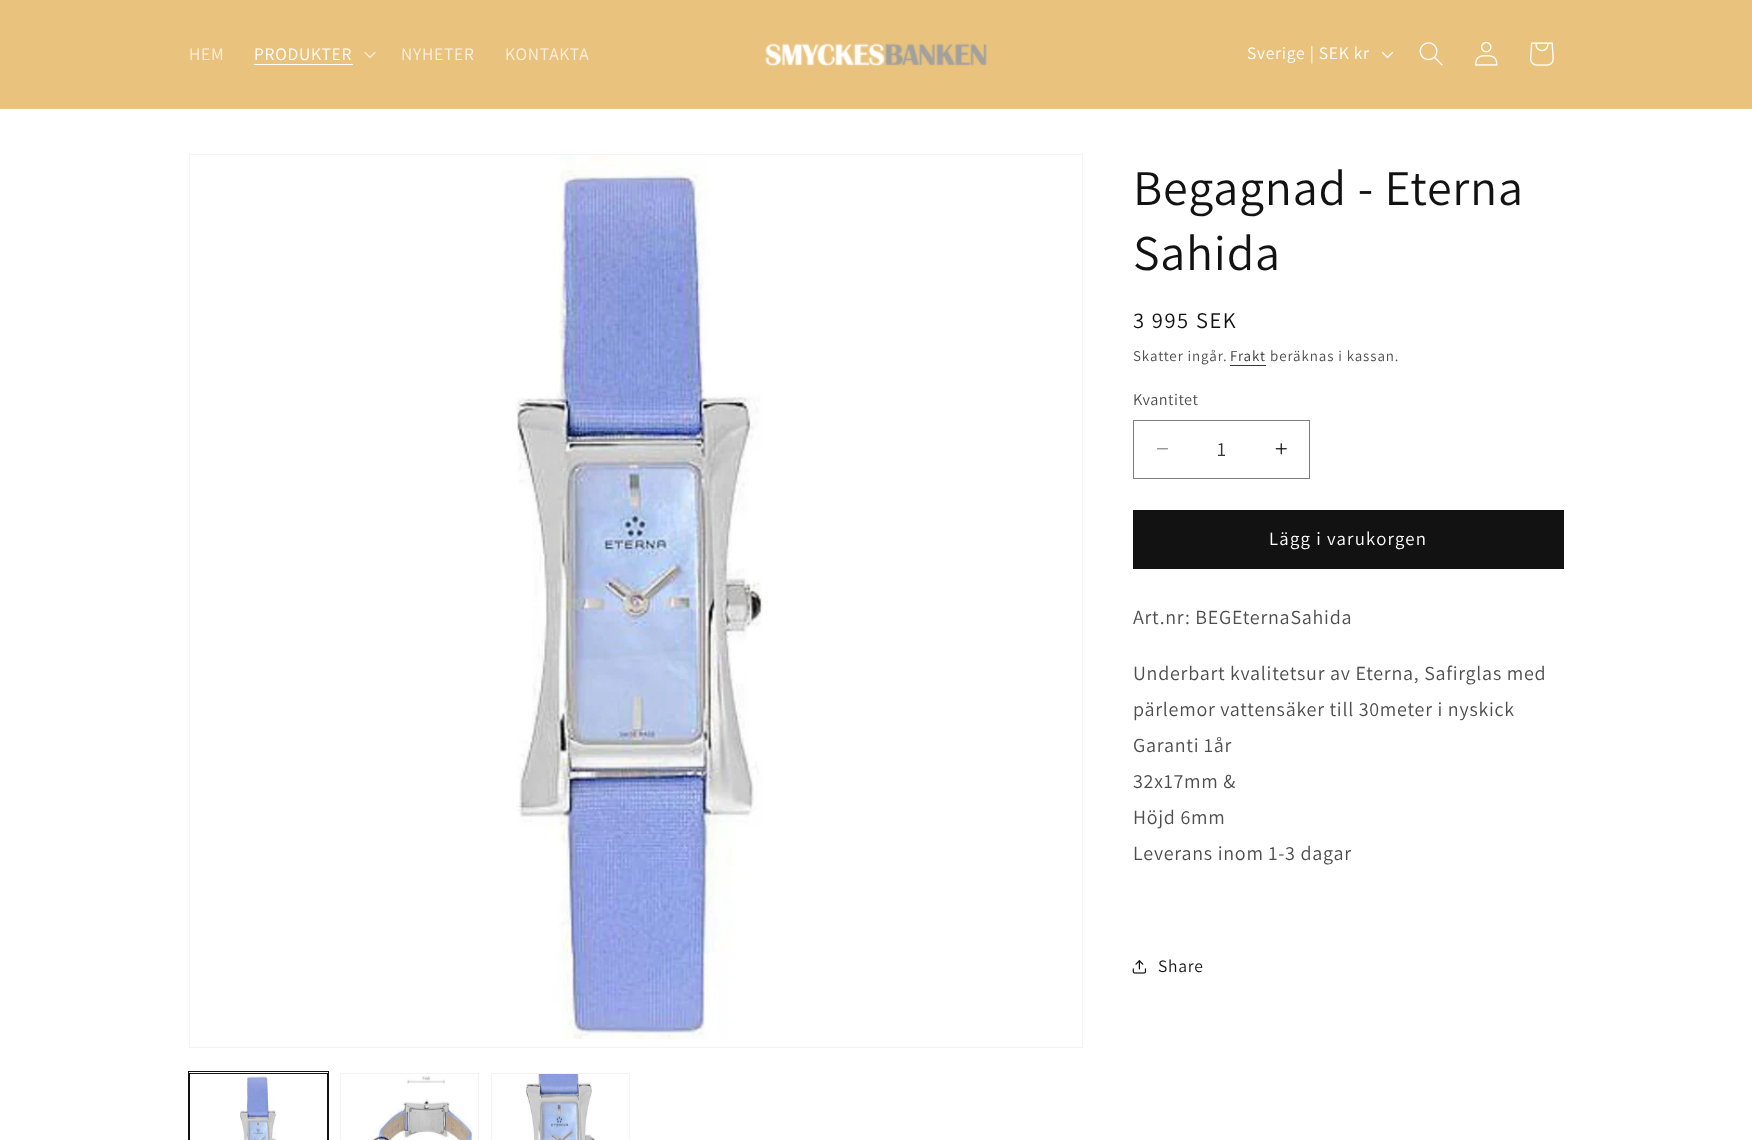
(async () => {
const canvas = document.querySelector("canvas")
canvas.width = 1752
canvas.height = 1140
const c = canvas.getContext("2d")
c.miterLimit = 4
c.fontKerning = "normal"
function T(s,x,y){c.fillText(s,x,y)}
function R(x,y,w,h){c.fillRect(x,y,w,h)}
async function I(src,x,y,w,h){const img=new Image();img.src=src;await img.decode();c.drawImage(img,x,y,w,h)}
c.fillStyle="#fff"
R(0,0,1752,1140)
c.fillStyle="#e9c37d"
R(0,0,1752,108)
c.fillStyle="#ebc887"
R(0,108,1752,1)
c.letterSpacing="0.75px"
c.font="17.5px Assistant"
c.fillStyle="#faf0df"
T("HEM",189,60)
c.fillStyle="#fff"
T("PRODUKTER",254,60)
R(254,64,99,1)
await I("1.png",364,52,12,6)
c.fillStyle="#faf0df"
T("NYHETER",401,60)
T("KONTAKTA",505,60)
await I("2.png",765,43,222,24)
c.fillStyle="#fff"
T("Sverige | SEK kr",1247,59)
await I("3.png",1381,51,13,8)
await I("4.png",1419,42,24,24)
await I("5.png",1475,41,23,25)
await I("6.png",1530,42,24,24)
c.strokeStyle="#f3f3f3"
c.strokeRect(189.5,154.5,893,893)
await I("7.png",515,155,253,885)
c.strokeStyle="#121212"
c.strokeRect(188.5,1071.5,140,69)
c.strokeRect(189.5,1073.5,138,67)
await I("8.png",240,1074,37,66)
c.strokeStyle="#f3f3f3"
c.strokeRect(340.5,1073.5,138,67)
await I("9.png",371,1076,102,64)
c.strokeRect(491.5,1073.5,138,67)
await I("10.png",525,1074,70,66)
c.font="50px Assistant"
c.fillStyle="#121212"
T("Begagnad - Eterna",1133,205)
T("Sahida",1133,270)
c.letterSpacing="1.6px"
c.font="22.5px Assistant"
T("3 995 SEK",1133,328)
c.letterSpacing="0.9px"
c.font="15px Assistant"
c.fillStyle="#4d4d4d"
T("Skatter ingår.",1133,361)
c.fillStyle="#363636"
T("Frakt",1230,361)
R(1230,365,36,1)
c.fillStyle="#4d4d4d"
T("beräknas i kassan.",1270,361)
c.letterSpacing="0.5px"
c.font="16.25px Assistant"
T("Kvantitet",1133,405)
await I("11.png",1157,448,11,2)
await I("12.png",1275,443,12,12)
c.strokeStyle="#7d7d7d"
c.strokeRect(1133.5,420.5,176,58)
c.letterSpacing="0px"
c.font="20px Assistant"
c.fillStyle="#363636"
T("1",1217,456)
c.fillStyle="#121212"
R(1133,510,431,59)
c.letterSpacing="1.25px"
c.font="18.75px Assistant"
c.fillStyle="#fff"
T("Lägg i varukorgen",1269,545)
c.letterSpacing="0.75px"
c.font="20px Assistant"
c.fillStyle="#4d4d4d"
T("Art.nr: BEGEternaSahida",1133,624)
T("Underbart kvalitetsur av Eterna, Safirglas med",1133,680)
T("pärlemor vattensäker till 30meter i nyskick",1133,716)
T("Garanti 1år",1133,752)
T("32x17mm &",1133,788)
T("Höjd 6mm",1133,824)
T("Leverans inom 1-3 dagar",1133,860)
await I("13.png",1132,960,15,14)
c.font="17.5px Assistant"
c.fillStyle="#121212"
T("Share",1158,972)
})()
